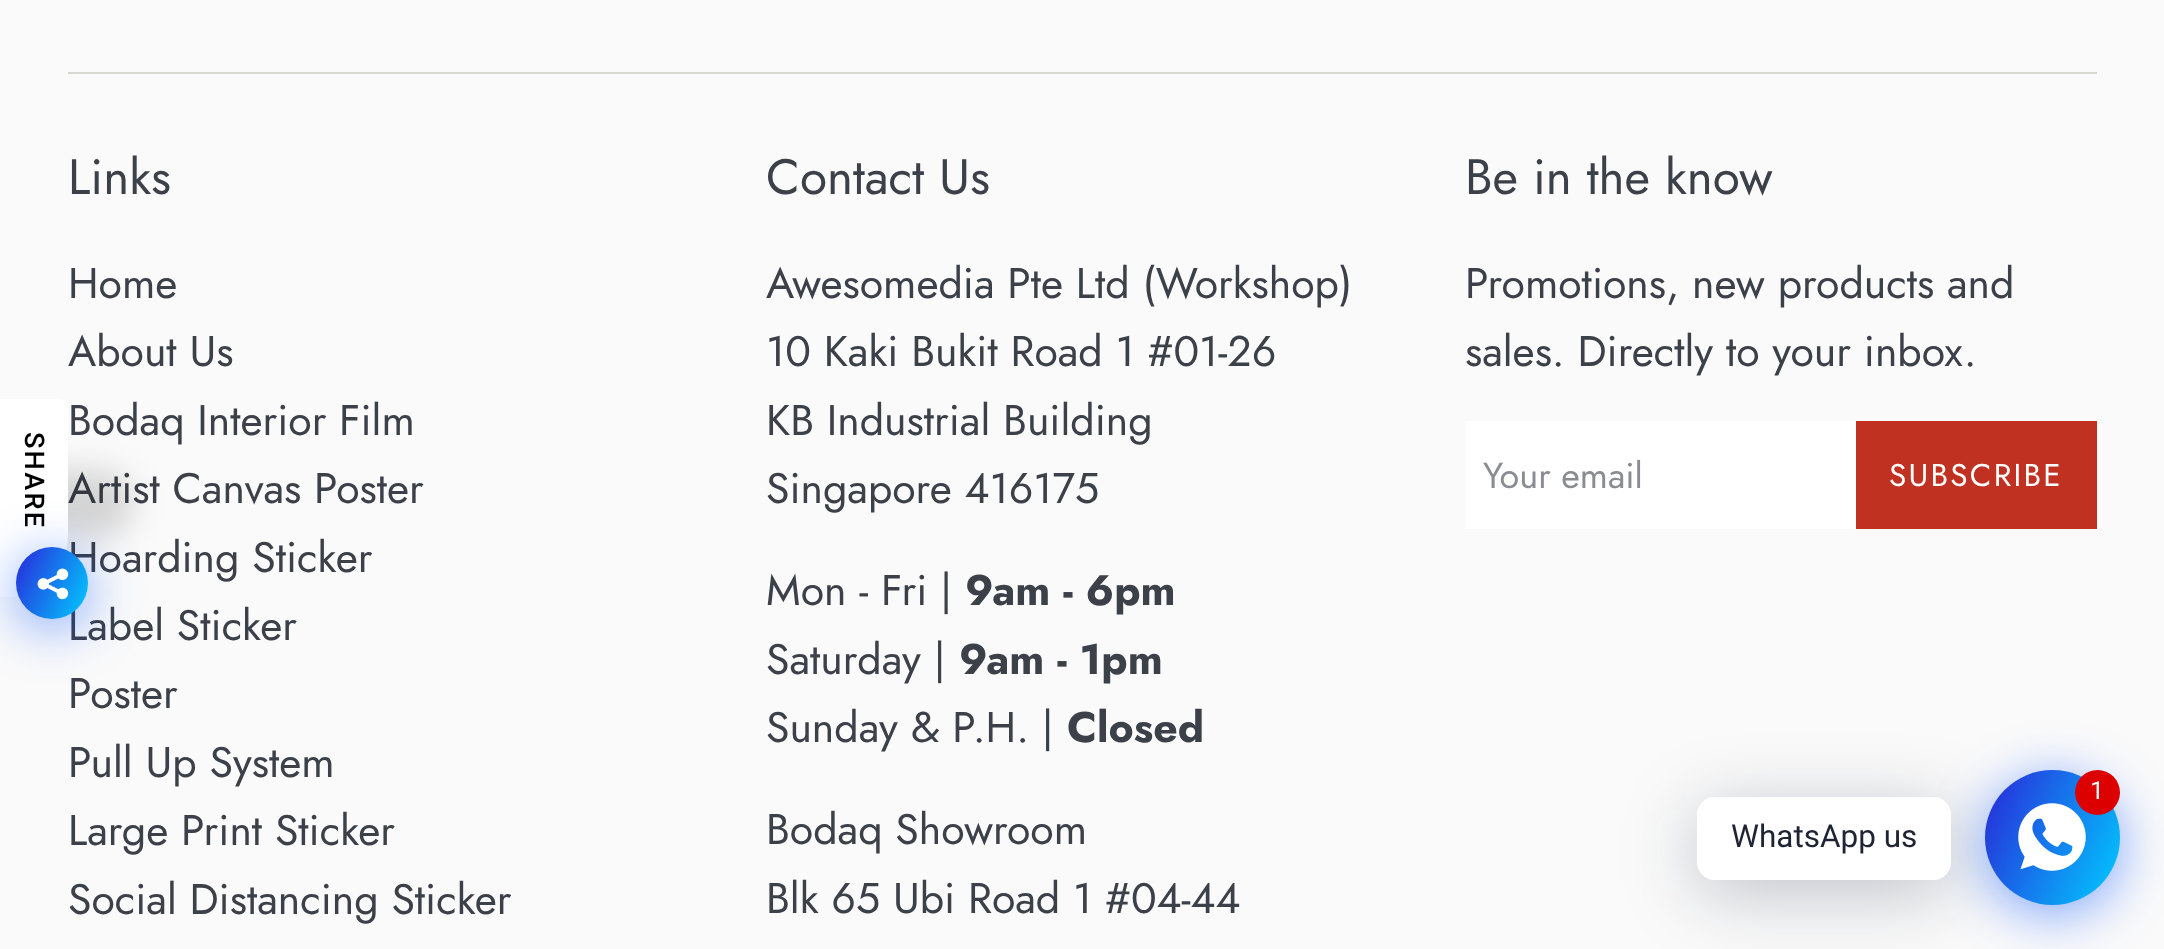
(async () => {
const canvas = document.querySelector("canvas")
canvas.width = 2164
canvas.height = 949
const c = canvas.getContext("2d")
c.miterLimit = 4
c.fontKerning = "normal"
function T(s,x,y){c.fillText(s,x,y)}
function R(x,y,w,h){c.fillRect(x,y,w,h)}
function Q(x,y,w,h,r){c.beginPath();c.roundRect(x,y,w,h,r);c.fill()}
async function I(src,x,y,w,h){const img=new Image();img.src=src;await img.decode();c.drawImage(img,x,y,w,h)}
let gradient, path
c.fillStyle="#fafafa"
R(0,0,2164,949)
c.fillStyle="#d7d8d2"
R(68,72,2029,2)
c.font="49.5px Jost"
c.fillStyle="#3c4049"
T("Links",68,194)
c.font="42.75px Jost"
T("Home",68,298)
T("About Us",68,366)
T("Bodaq Interior Film",68,435)
T("Artist Canvas Poster",68,503)
T("Hoarding Sticker",68,572)
T("Label Sticker",68,640)
T("Poster",68,708)
T("Pull Up System",68,777)
T("Large Print Sticker",68,845)
T("Social Distancing Sticker",68,914)
c.font="49.5px Jost"
T("Contact Us",766,194)
c.font="42.75px Jost"
T("Awesomedia Pte Ltd (Workshop)",766,298)
T("10 Kaki Bukit Road 1 #01-26",766,366)
T("KB Industrial Building",766,435)
T("Singapore 416175",766,503)
T("Mon - Fri |",766,605)
c.font="bold 42.75px Jost"
T("9am - 6pm",965,605)
c.font="42.75px Jost"
T("Saturday |",766,674)
c.font="bold 42.75px Jost"
T("9am - 1pm",959,674)
c.font="42.75px Jost"
T("Sunday & P.H. |",766,742)
c.font="bold 42.75px Jost"
T("Closed",1067,742)
c.font="42.75px Jost"
T("Bodaq Showroom",766,844)
T("Blk 65 Ubi Road 1 #04-44",766,913)
c.font="49.5px Jost"
T("Be in the know",1465,194)
c.font="42.75px Jost"
T("Promotions, new products and",1465,298)
T("sales. Directly to your inbox.",1465,366)
c.fillStyle="#fff"
R(1465,421,391,108)
c.font="36px Jost"
c.fillStyle="#8a8c92"
T("Your email",1483,488)
c.fillStyle="#c13121"
R(1856,421,241,108)
c.letterSpacing="2.25px"
c.font="31.5px Jost"
c.fillStyle="#fff"
T("SUBSCRIBE",1889,486)
c.fillStyle="#00000026"
c.filter="blur(16px)"
c.beginPath()
c.roundRect(-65,470,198,68,63)
c.fill()
c.filter="none"
c.fillStyle="#fff"
path = new Path2D("M0 597v-198h58c5 0 10 4 10 9v126c0 35-29 63-64 63z")
c.fill(path)
c.font="500 27px Roboto"
c.fillStyle="#000"
c.save()
c.translate(25,432)
c.rotate(90 * Math.PI / 180)
c.fillText("SHARE",0,0)
c.restore()
c.fillStyle="#004dff80"
c.filter="blur(27px)"
c.beginPath()
c.roundRect(16,556,72,72,36)
c.fill()
c.filter="none"
gradient = c.createLinearGradient(8,563,95,603)
gradient.addColorStop(0,"#2a27da")
gradient.addColorStop(1,"#0cf")
c.fillStyle = gradient
c.beginPath()
c.arc(52,583,36,0,7)
c.fill()
await I("1.png",37,568,32,32)
c.fillStyle="#004dff80"
c.filter="blur(27px)"
c.beginPath()
c.roundRect(1985,779,135,135,67.5)
c.fill()
c.filter="none"
gradient = c.createLinearGradient(1971,799,2133,875)
gradient.addColorStop(0,"#2a27da")
gradient.addColorStop(1,"#0cf")
c.fillStyle = gradient
c.beginPath()
c.arc(2052.5,837.5,67.5,0,7)
c.fill()
c.save()
path = new Path2D("M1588 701h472v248h-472zm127 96h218c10 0 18 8 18 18v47c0 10-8 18-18 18h-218c-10 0-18-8-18-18v-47c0-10 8-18 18-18z")
c.clip(path,"evenodd")
c.fillStyle="#00122e3d"
c.filter="blur(36px)"
c.beginPath()
c.roundRect(1697,810,254,83,18)
c.fill()
c.filter="none"
c.restore()
await I("2.png",2018,803,68,68)
c.fillStyle="#d00"
c.beginPath()
c.arc(2097.5,792.5,22.5,0,7)
c.fill()
c.letterSpacing="0px"
c.font="25px Roboto"
c.fillStyle="#fff"
T("1",2090,799)
Q(1697,797,254,83,18)
c.font="31.5px Roboto"
c.fillStyle="#1e2433"
T("WhatsApp us",1731,847)
})()
